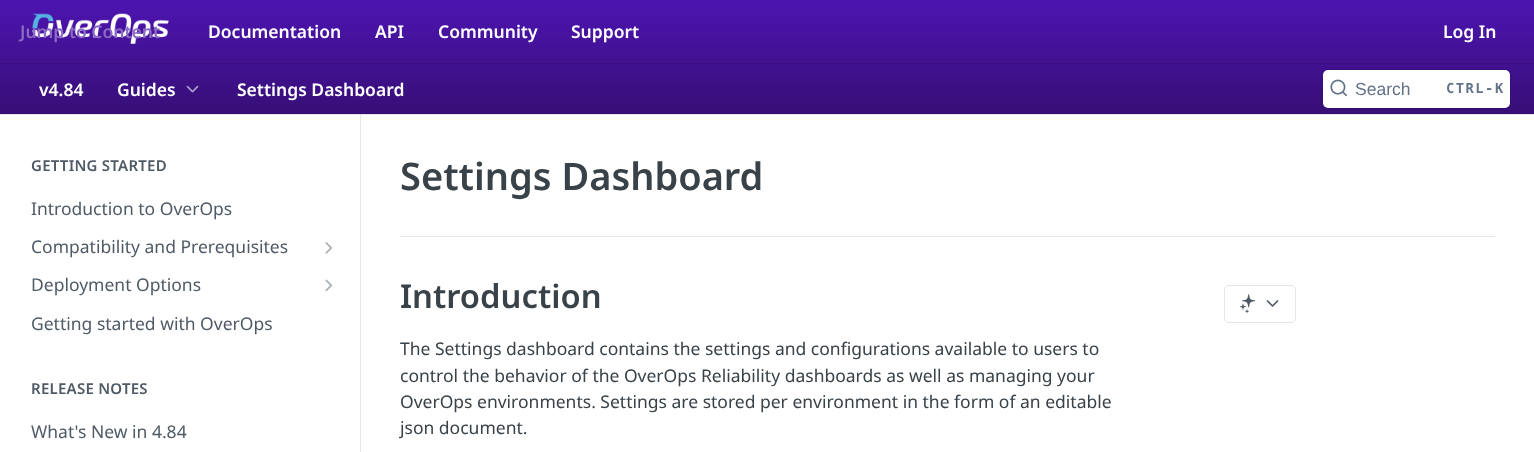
(async () => {
const canvas = document.querySelector("canvas")
canvas.width = 1534
canvas.height = 452
const c = canvas.getContext("2d")
c.miterLimit = 4
c.fontKerning = "normal"
function T(s,x,y){c.fillText(s,x,y)}
function R(x,y,w,h){c.fillRect(x,y,w,h)}
function Q(x,y,w,h,r){c.beginPath();c.roundRect(x,y,w,h,r);c.fill()}
async function I(src,x,y,w,h){const img=new Image();img.src=src;await img.decode();c.drawImage(img,x,y,w,h)}
let gradient, path
c.fillStyle="#fff"
R(0,0,1534,452)
c.fillStyle="#e6e6e6"
R(0,114,1534,1)
gradient = c.createLinearGradient(768,0,768,114)
gradient.addColorStop(0,"#4d14b1")
gradient.addColorStop(1,"#370f76")
c.fillStyle = gradient
R(0,0,1534,114)
c.fillStyle="#3b0f82"
R(0,63,1534,1)
await I("1.png",32,13,137,31)
c.font="600 17.5px Noto Sans"
c.fillStyle="#8b6bc3"
T("Jump to Content",20,38)
c.fillStyle="#fff"
T("Documentation",208,38)
T("API",375,38)
T("Community",438,38)
T("Support",571,38)
T("Log In",1443,38)
T("v4.84",39,96)
T("Guides",117,96)
await I("2.png",186,85,13,8)
T("Settings Dashboard",237,96)
c.beginPath()
c.roundRect(1321.5,69.5,189,39,5.5)
c.strokeStyle="#0000001a"
c.stroke()
Q(1323,70,187,38,5)
await I("3.png",1330,79,17,18)
c.font="17.5px Liberation Sans"
c.fillStyle="#637288"
T("Search",1355,95)
c.letterSpacing="1.5px"
c.font="bold 13.75px DejaVu Sans Mono"
T("CTRL-K",1446,93)
c.fillStyle="#e6e6e6"
R(360,114,1,338)
c.fillStyle="#cfcfcf"
R(360,114,1,1)
c.letterSpacing="0.25px"
c.font="600 15px Noto Sans"
c.fillStyle="#4f5a66"
T("GETTING STARTED",31,171)
c.letterSpacing="0px"
c.font="17.5px Noto Sans"
T("Introduction to OverOps",31,215)
T("Compatibility and Prerequisites",31,253)
await I("4.png",325,242,7,12)
T("Deployment Options",31,291)
await I("5.png",325,279,7,13)
T("Getting started with OverOps",31,330)
c.letterSpacing="0.25px"
c.font="600 15px Noto Sans"
T("RELEASE NOTES",31,394)
c.letterSpacing="0px"
c.font="17.5px Noto Sans"
T("What's New in 4.84",31,438)
c.fillStyle="#e6e6e6"
R(400,236,1095,1)
c.font="600 38px Noto Sans"
c.fillStyle="#384248"
T("Settings Dashboard",400,190)
c.font="600 32.75px Noto Sans"
T("Introduction",400,308)
c.font="17.5px Noto Sans"
T("The Settings dashboard contains the settings and configurations available to users to",400,355)
T("control the behavior of the OverOps Reliability dashboards as well as managing your",400,382)
T("OverOps environments. Settings are stored per environment in the form of an editable",400,408)
T("json document.",400,434)
c.beginPath()
c.roundRect(1224.5,285.5,71,37,4.5)
c.strokeStyle="#e6e6e6"
c.stroke()
await I("6.png",1239,294,17,20)
path = new Path2D("M1267.5 301l5 5l5-5")
c.strokeStyle="#4f5a66"
c.lineWidth=1.7
c.lineCap="round"
c.lineJoin="round"
c.stroke(path)
})()
